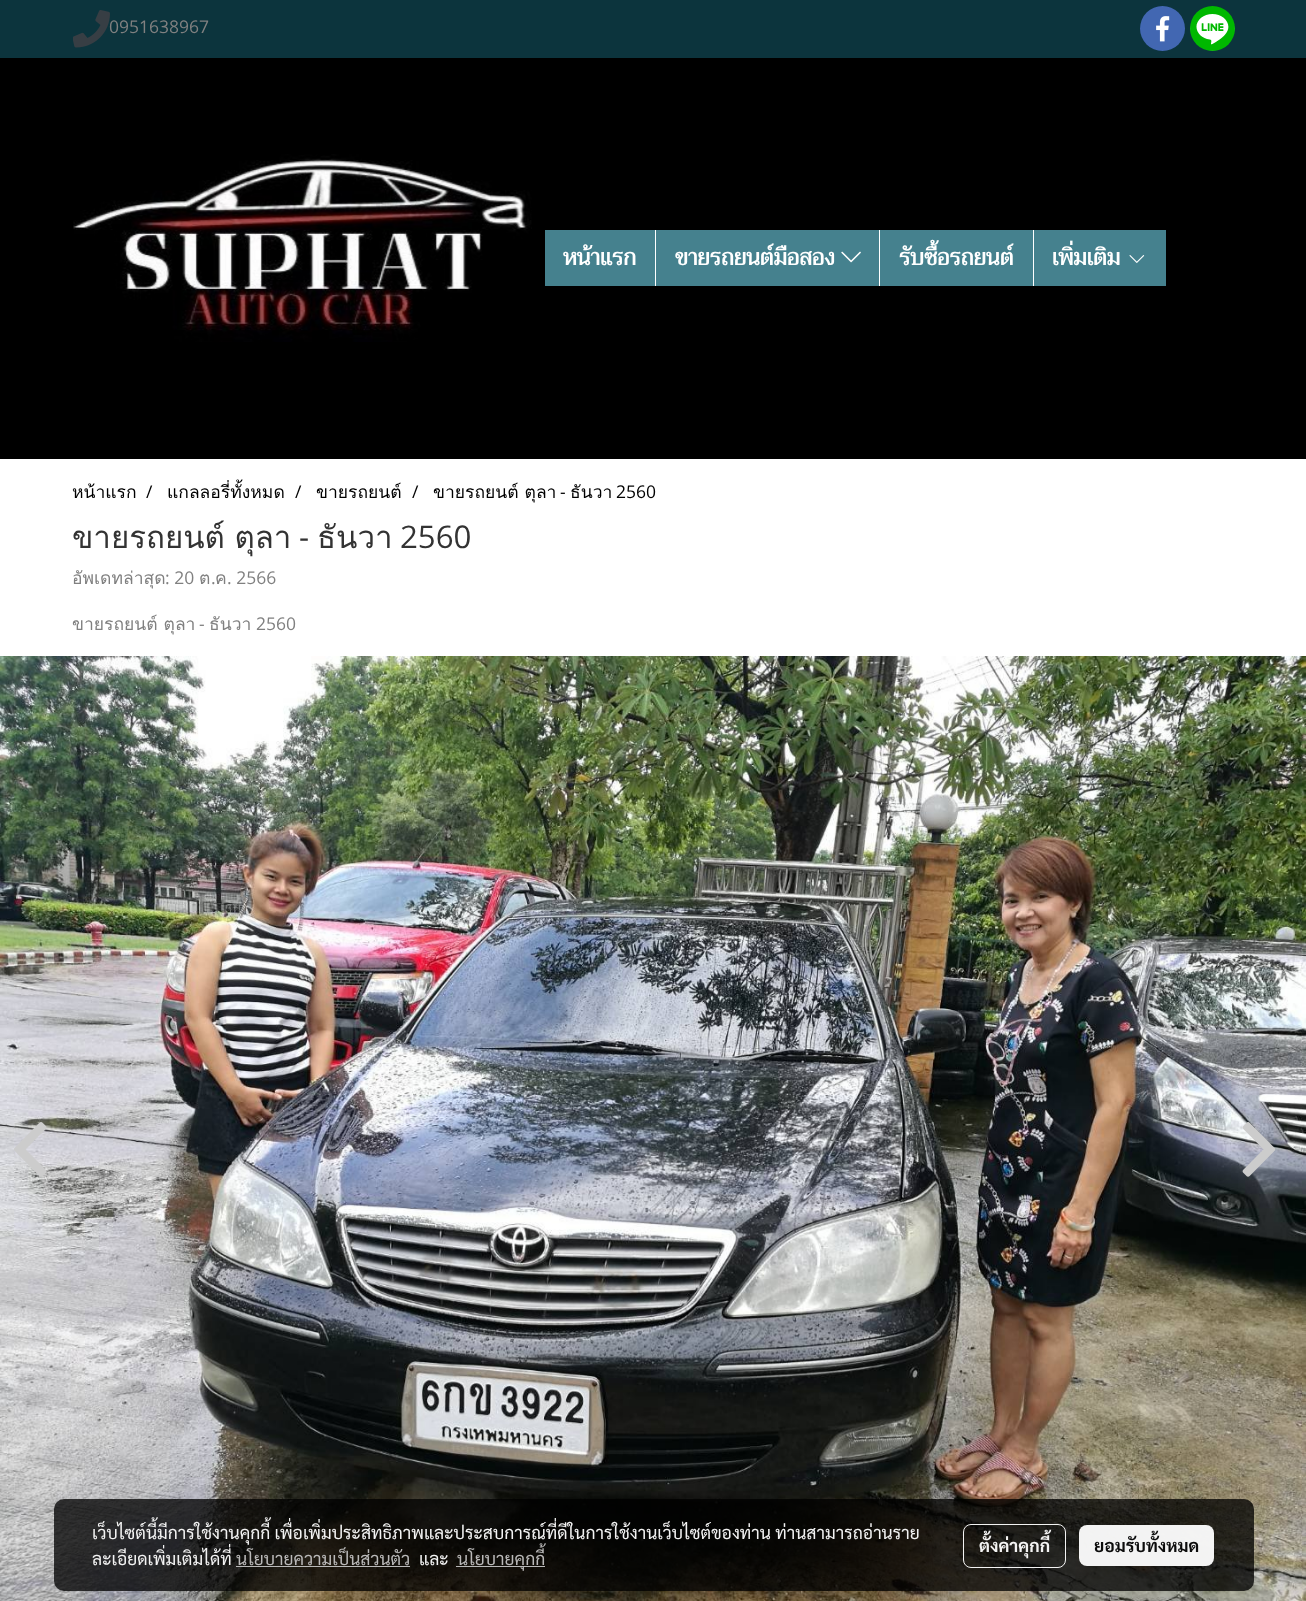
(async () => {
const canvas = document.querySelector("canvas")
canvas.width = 1306
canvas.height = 1601
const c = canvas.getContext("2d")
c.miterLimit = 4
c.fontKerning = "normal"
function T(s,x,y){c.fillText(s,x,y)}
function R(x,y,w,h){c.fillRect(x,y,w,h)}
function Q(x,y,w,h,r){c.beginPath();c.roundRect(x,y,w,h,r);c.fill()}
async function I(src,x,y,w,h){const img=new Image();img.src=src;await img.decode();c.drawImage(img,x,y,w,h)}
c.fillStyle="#fff"
R(0,0,1306,1601)
c.fillStyle="#000"
R(0,58,1306,401)
c.fillStyle="#0c343d"
R(0,0,1306,58)
await I("1.png",73,10,37,38)
c.font="17.5px Open Sans"
c.fillStyle="#808080"
T("0951638967",109,33)
c.fillStyle="#4267b2"
c.beginPath()
c.arc(1162.5,28.5,22.5,0,7)
c.fill()
await I("2.png",1156,16,14,26)
c.fillStyle="#00b800"
c.beginPath()
c.arc(1212.5,28.5,22.5,0,7)
c.fill()
await I("3.png",1190,14,45,37)
await I("4.png",73,154,459,188)
c.fillStyle="#fff"
R(655,230,1,56)
c.fillStyle="#45818e"
R(545,230,110,56)
c.font="bold 22.5px Trirong"
c.fillStyle="#fff"
T("หน้าแรก",563,265)
R(879,230,1,56)
c.fillStyle="#45818e"
R(656,230,223,56)
c.fillStyle="#fff"
T("ขายรถยนต์มือสอง",675,265)
await I("5.png",841,251,20,12)
R(1033,230,1,56)
c.fillStyle="#45818e"
R(880,230,153,56)
c.fillStyle="#fff"
T("รับซื้อรถยนต์",899,265)
c.fillStyle="#45818e"
R(1034,230,132,56)
c.fillStyle="#fff"
T("เพิ่มเติม",1052,265)
await I("6.png",1129,255,16,8)
c.font="17.5px Loma"
c.fillStyle="#000"
T("หน้าแรก",72,498)
c.font="17.5px Open Sans"
T("/",146,498)
c.font="17.5px Loma"
T("แกลลอรี่ทั้งหมด",167,498)
c.font="17.5px Open Sans"
T("/",295,498)
c.font="17.5px Loma"
T("ขายรถยนต์",316,498)
c.font="17.5px Open Sans"
T("/",412,498)
c.font="17.5px Loma"
T("ขายรถยนต์ ตุลา",433,498)
c.font="17.5px Open Sans"
T("-",560,498)
c.font="17.5px Loma"
T("ธันวา",570,498)
c.font="17.5px Open Sans"
T("2560",616,498)
c.wordSpacing="-1px"
c.font="31.25px Loma"
c.fillStyle="#333"
T("ขายรถยนต์ ตุลา",72,548)
c.wordSpacing="0px"
c.font="31.25px Open Sans"
T("-",299,548)
c.font="31.25px Loma"
T("ธันวา",317,548)
c.font="31.25px Open Sans"
T("2560",400,548)
c.font="17.5px Loma"
c.fillStyle="#808080"
T("อัพเดทล่าสุด",72,584)
c.font="17.5px Open Sans"
T(": 20",165,584)
c.font="17.5px Loma"
T("ต",199,584)
c.font="17.5px Open Sans"
T(".",211,584)
c.font="17.5px Loma"
T("ค",215,584)
c.font="17.5px Open Sans"
T(". 2566",227,584)
c.font="17.5px Loma"
T("ขายรถยนต์ ตุลา",72,630)
c.font="17.5px Open Sans"
T("-",199,630)
c.font="17.5px Loma"
T("ธันวา",209,630)
c.font="17.5px Open Sans"
T("2560",256,630)
await I("7.png",0,656,1306,945)
await I("8.png",14,1122,33,55)
await I("9.png",1242,1122,34,55)
c.fillStyle="#000000c2"
Q(54,1499,1200,92,10)
c.font="17.5px Sarabun"
c.fillStyle="#f3f3f3"
T("เว็บไซต์นี้มีการใช้งานคุกกี้ เพื่อเพิ่มประสิทธิภาพและประสบการณ์ที่ดีในการใช้งานเว็บไซต์ของท่าน ท่านสามารถอ่านราย",92,1539)
T("ละเอียดเพิ่มเติมได้ที่",92,1565)
c.fillStyle="#bab9b9"
T("นโยบายความเป็นส่วนตัว",236,1565)
c.fillStyle="#c2c2c2f2"
R(236,1566,174,1)
c.fillStyle="#f3f3f3"
T("และ",419,1565)
c.fillStyle="#c2c2c2f2"
R(456,1566,89,1)
c.fillStyle="#bab9b9"
T("นโยบายคุกกี้",457,1565)
c.beginPath()
c.roundRect(963.5,1524.5,102,43,7.5)
c.strokeStyle="#fffffff2"
c.stroke()
c.font="bold 17.5px Sarabun"
c.fillStyle="#f3f3f3"
T("ตั้งค่าคุกกี้",979,1552)
c.fillStyle="#fffffff2"
Q(1079,1525,135,41,8)
c.fillStyle="#0c0c0c"
T("ยอมรับทั้งหมด",1094,1552)
})()
